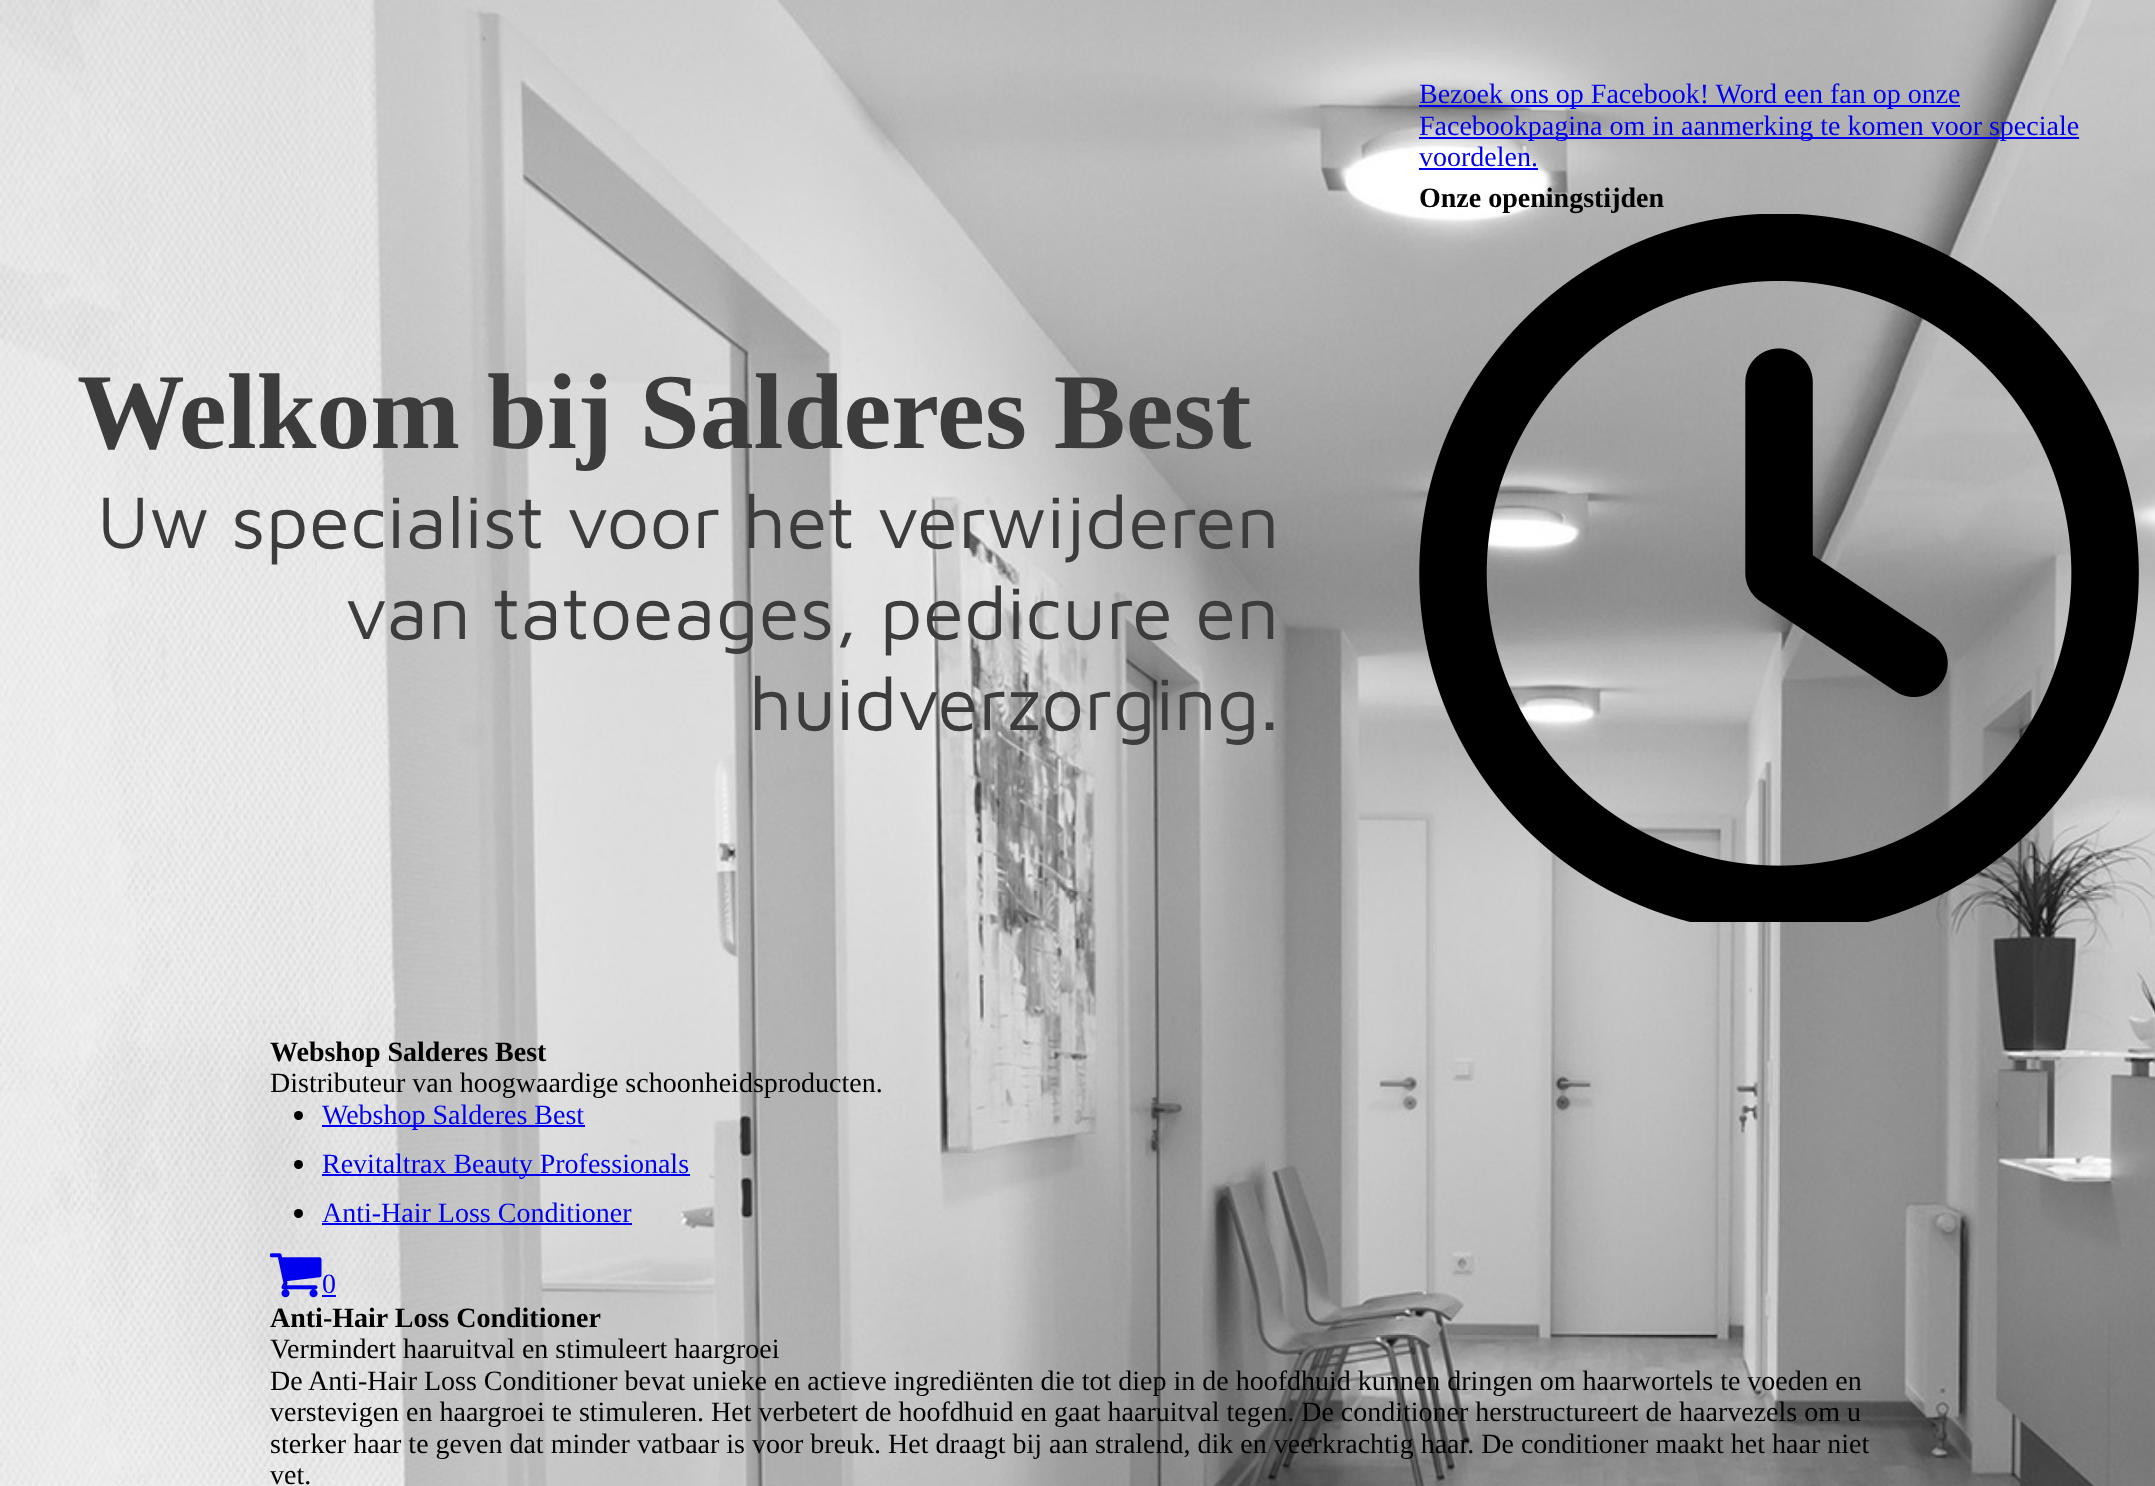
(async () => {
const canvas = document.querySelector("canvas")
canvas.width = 2155
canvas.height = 1486
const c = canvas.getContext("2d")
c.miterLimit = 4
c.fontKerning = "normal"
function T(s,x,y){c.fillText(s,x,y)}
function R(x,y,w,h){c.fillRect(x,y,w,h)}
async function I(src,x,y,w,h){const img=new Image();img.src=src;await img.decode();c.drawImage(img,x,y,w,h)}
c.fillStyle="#fff"
R(0,0,2155,1486)
await I("1.png",0,0,2155,1486)
c.fillStyle="#00e"
R(1419,105,541,2)
c.font="28px Liberation Serif"
T("Bezoek ons op Facebook! Word een fan op onze",1419,103)
R(1419,137,660,2)
T("Facebookpagina om in aanmerking te komen voor speciale",1419,135)
T("voordelen.",1419,166)
R(1419,168,119,2)
c.font="bold 28px Liberation Serif"
c.fillStyle="#000"
T("Onze openingstijden",1419,207)
await I("2.png",1419,214,720,708)
c.font="bold 107.75px Liberation Serif"
c.fillStyle="#3d3c3c"
T("Welkom bij Salderes Best",77,448)
c.font="75.5px Maven Pro"
T("Uw specialist voor het verwijderen",97,548)
T("van tatoeages, pedicure en",345,639)
T("huidverzorging.",749,730)
c.font="bold 28px Liberation Serif"
c.fillStyle="#000"
T("Webshop Salderes Best",270,1061)
c.font="28px Liberation Serif"
T("Distributeur van hoogwaardige schoonheidsproducten.",270,1092)
c.beginPath()
c.arc(298.5,1115.5,4.5,0,7)
c.fill()
c.fillStyle="#00e"
R(322,1125,263,2)
T("Webshop Salderes Best",322,1124)
c.fillStyle="#000"
c.beginPath()
c.arc(298.5,1164.5,4.5,0,7)
c.fill()
c.fillStyle="#00e"
R(322,1174,368,2)
T("Revitaltrax Beauty Professionals",322,1173)
c.fillStyle="#000"
c.beginPath()
c.arc(298.5,1213.5,4.5,0,7)
c.fill()
c.fillStyle="#00e"
T("Anti-Hair Loss Conditioner",322,1222)
R(322,1223,310,2)
await I("3.png",270,1253,52,45)
T("0",322,1293)
R(322,1295,14,2)
c.font="bold 28px Liberation Serif"
c.fillStyle="#000"
T("Anti-Hair Loss Conditioner",270,1327)
c.font="28px Liberation Serif"
T("Vermindert haaruitval en stimuleert haargroei",270,1358)
T("De Anti-Hair Loss Conditioner bevat unieke en actieve ingrediënten die tot diep in de hoofdhuid kunnen dringen om haarwortels te voeden en",270,1390)
T("verstevigen en haargroei te stimuleren. Het verbetert de hoofdhuid en gaat haaruitval tegen. De conditioner herstructureert de haarvezels om u",270,1421)
T("sterker haar te geven dat minder vatbaar is voor breuk. Het draagt bij aan stralend, dik en veerkrachtig haar. De conditioner maakt het haar niet",270,1453)
T("vet.",270,1484)
})()
